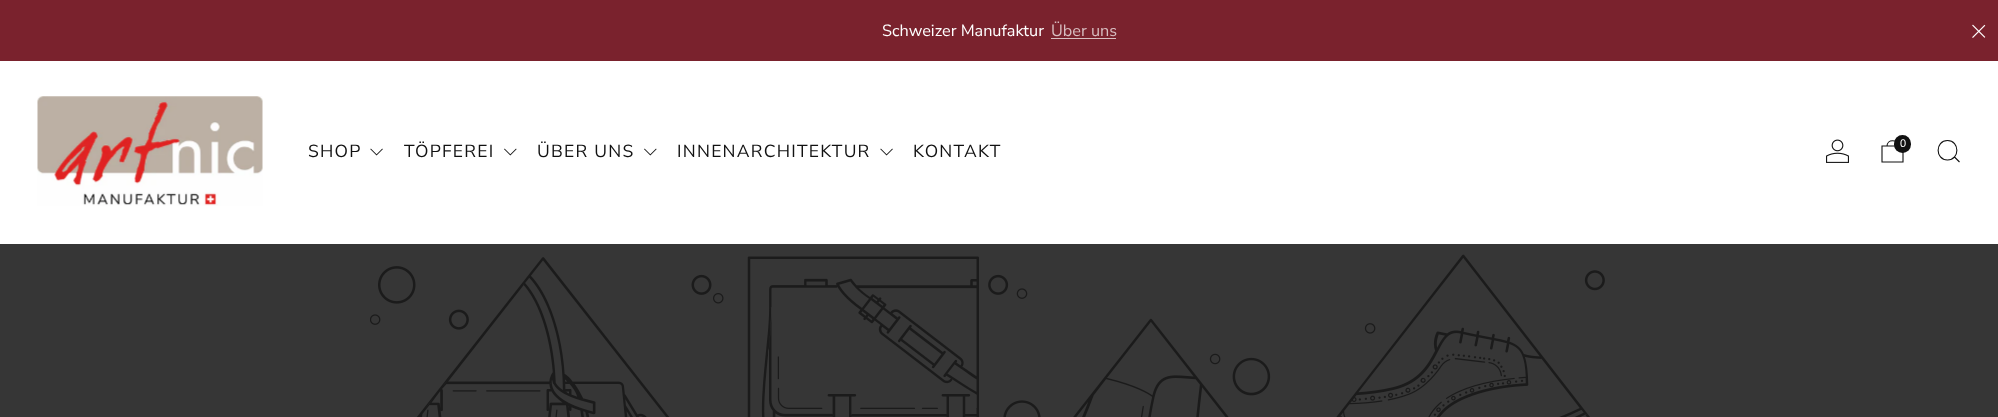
(async () => {
const canvas = document.querySelector("canvas")
canvas.width = 1998
canvas.height = 417
const c = canvas.getContext("2d")
c.miterLimit = 4
c.fontKerning = "normal"
function T(s,x,y){c.fillText(s,x,y)}
function R(x,y,w,h){c.fillRect(x,y,w,h)}
function Q(x,y,w,h,r){c.beginPath();c.roundRect(x,y,w,h,r);c.fill()}
async function I(src,x,y,w,h){const img=new Image();img.src=src;await img.decode();c.drawImage(img,x,y,w,h)}
let path
c.fillStyle="#fff"
R(0,0,1998,417)
c.fillStyle="#7a222d"
R(0,0,1998,61)
c.font="16.25px Nunito Sans"
c.fillStyle="#fff"
T("Schweizer Manufaktur",882,36)
c.fillStyle="#d7bdc0"
T("Über uns",1051,36)
R(1051,38,65,1)
await I("1.png",1972,24,14,14)
await I("2.png",37,96,226,110)
c.letterSpacing="1.25px"
c.font="17.5px Nunito Sans"
c.fillStyle="#111"
T("SHOP",308,157)
await I("3.png",370,148,13,8)
T("TÖPFEREI",404,157)
await I("4.png",504,148,13,8)
T("ÜBER UNS",537,157)
await I("4.png",644,148,13,8)
T("INNENARCHITEKTUR",677,157)
await I("3.png",880,148,13,8)
T("KONTAKT",913,157)
await I("5.png",1826,139,23,24)
path = new Path2D("M1882 146h21v16h-21zm16 0c0-7-11-7-11 0")
c.strokeStyle="#111"
c.lineWidth=1.1
c.stroke(path)
Q(1894,135,17,18,8.5)
c.letterSpacing="0px"
c.font="11px Liberation Sans"
c.fillStyle="#fff"
T("0",1900,147)
path = new Path2D("M1947.5 160c12.5 0 12.5-19.5 0-19.5c-12.5 0-12.5 19.5 0 19.5zm7-3l5 5")
c.stroke(path)
c.fillStyle="#363636"
R(0,244,1998,173)
await I("6.png",370,254,1235,163)
})()
